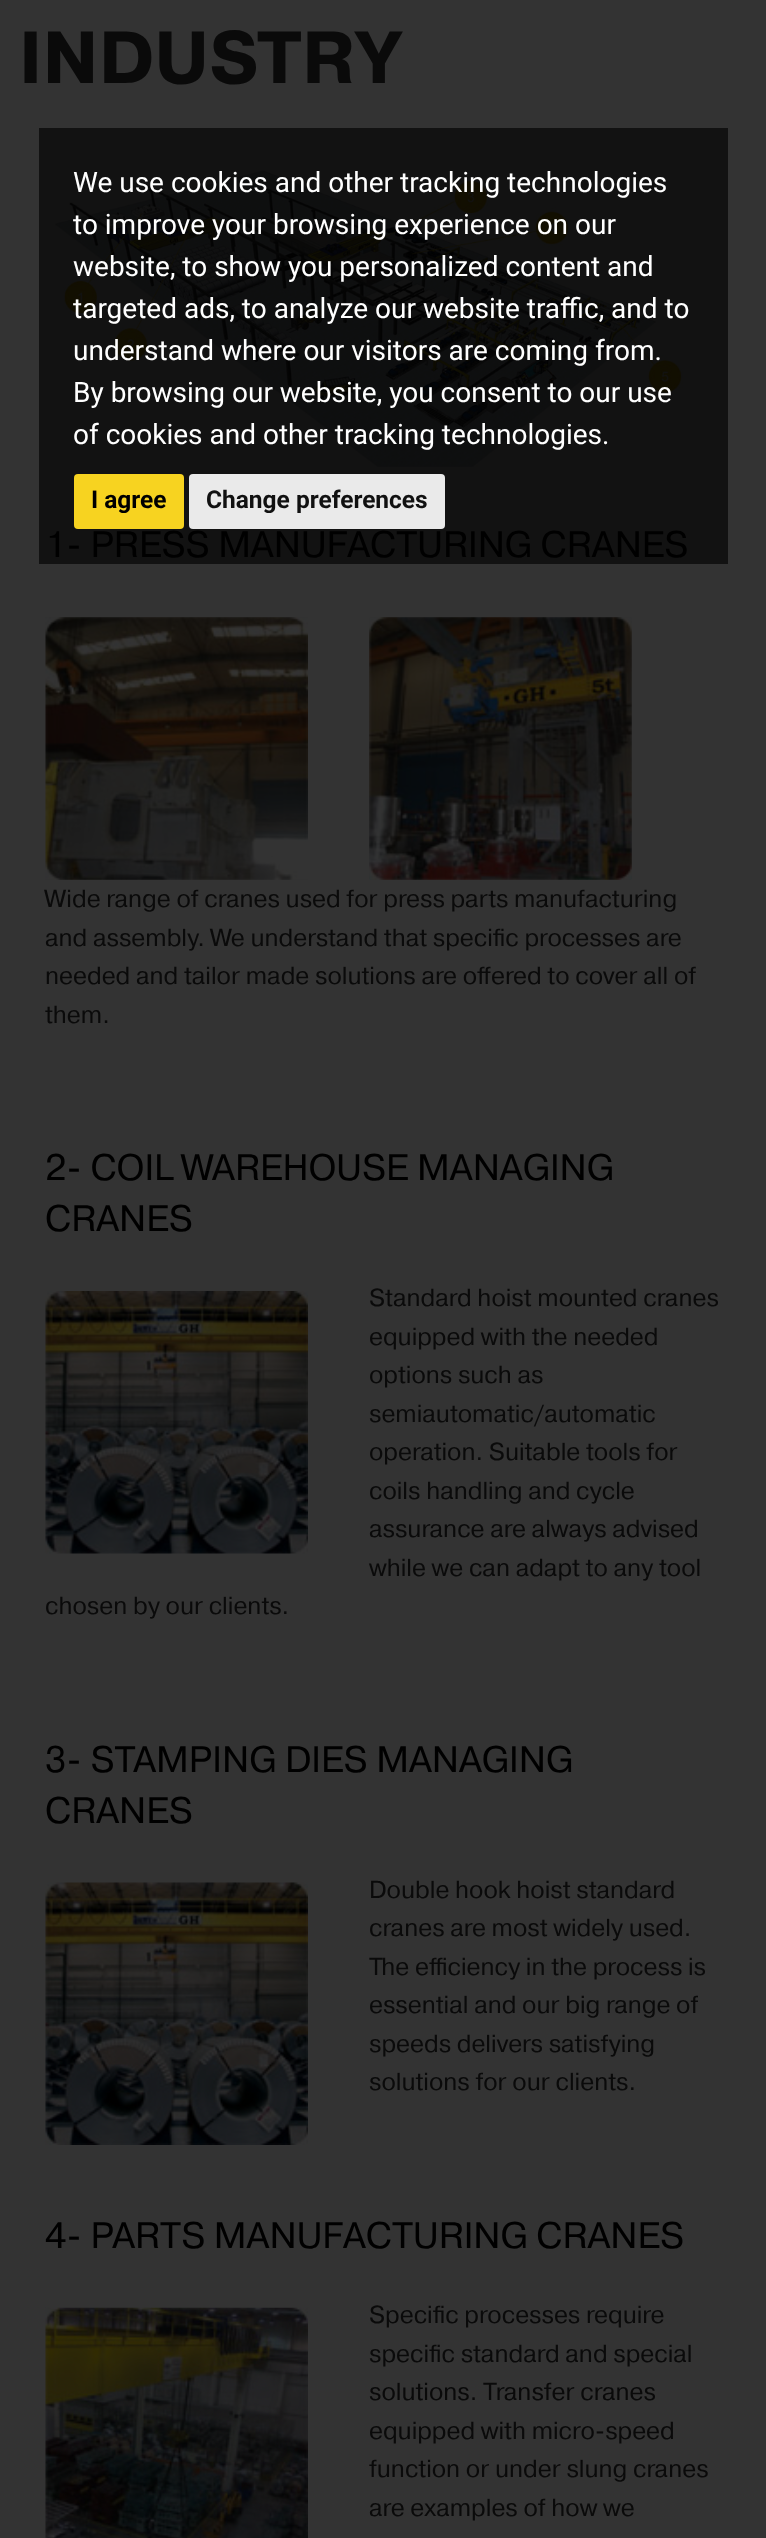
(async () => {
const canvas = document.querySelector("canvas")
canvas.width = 766
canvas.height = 2538
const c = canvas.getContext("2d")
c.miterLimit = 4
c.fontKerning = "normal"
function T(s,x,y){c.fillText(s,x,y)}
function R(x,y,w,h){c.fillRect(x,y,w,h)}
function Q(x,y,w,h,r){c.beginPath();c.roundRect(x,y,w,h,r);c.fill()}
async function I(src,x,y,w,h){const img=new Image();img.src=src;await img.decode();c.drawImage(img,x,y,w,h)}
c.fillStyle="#333"
R(0,0,766,2538)
c.fillStyle="#121212"
R(39,128,689,436)
c.font="bold 73.5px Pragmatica"
c.fillStyle="#0a0a0a"
T("INDUSTRY",19,83)
await I("1.png",51,168,632,299)
c.font="36.75px Pragmatica"
c.fillStyle="#000"
T("1- PRESS MANUFACTURING CRANES",45,557)
await I("2.png",45,617,263,263)
await I("3.png",369,617,263,263)
c.font="24.5px Pragmatica"
c.fillStyle="#0a0a0a"
T("Wide range of cranes used for press parts manufacturing",45,907)
T("and assembly. We understand that specific processes are",45,946)
T("needed and tailor made solutions are offered to cover all of",45,984)
T("them.",45,1023)
c.font="36.75px Pragmatica"
c.fillStyle="#000"
T("2- COIL WAREHOUSE MANAGING",45,1180)
T("CRANES",45,1231)
c.font="24.5px Pragmatica"
c.fillStyle="#0a0a0a"
T("Standard hoist mounted cranes",369,1306)
T("equipped with the needed",369,1345)
T("options such as",369,1383)
T("semiautomatic/automatic",369,1422)
T("operation. Suitable tools for",369,1460)
T("coils handling and cycle",369,1499)
T("assurance are always advised",369,1537)
T("while we can adapt to any tool",369,1576)
T("chosen by our clients.",45,1614)
await I("4.png",45,1291,263,263)
c.font="36.75px Pragmatica"
c.fillStyle="#000"
T("3- STAMPING DIES MANAGING",45,1772)
T("CRANES",45,1823)
await I("5.png",45,1882,263,263)
c.font="24.5px Pragmatica"
c.fillStyle="#0a0a0a"
T("Double hook hoist standard",369,1898)
T("cranes are most widely used.",369,1936)
T("The efficiency in the process is",369,1975)
T("essential and our big range of",369,2013)
T("speeds delivers satisfying",369,2052)
T("solutions for our clients.",369,2090)
c.font="36.75px Pragmatica"
c.fillStyle="#000"
T("4- PARTS MANUFACTURING CRANES",45,2248)
await I("6.png",45,2307,263,231)
c.font="24.5px Pragmatica"
c.fillStyle="#0a0a0a"
T("Specific processes require",369,2323)
T("specific standard and special",369,2362)
T("solutions. Transfer cranes",369,2400)
T("equipped with micro-speed",369,2439)
T("function or under slung cranes",369,2477)
T("are examples of how we",369,2516)
c.font="28px Roboto"
c.fillStyle="#fff"
T("We use cookies and other tracking technologies",73,192)
T("to improve your browsing experience on our",73,234)
T("website, to show you personalized content and",73,276)
T("targeted ads, to analyze our website traffic, and to",73,318)
T("understand where our visitors are coming from.",73,360)
T("By browsing our website, you consent to our use",73,402)
T("of cookies and other tracking technologies.",73,444)
c.fillStyle="#f7d320"
Q(74,474,110,55,4)
c.font="bold 24.5px Roboto"
c.fillStyle="#000"
T("I agree",91,508)
c.fillStyle="#eaeaea"
Q(189,474,256,55,4)
c.fillStyle="#111"
T("Change preferences",206,508)
})()
